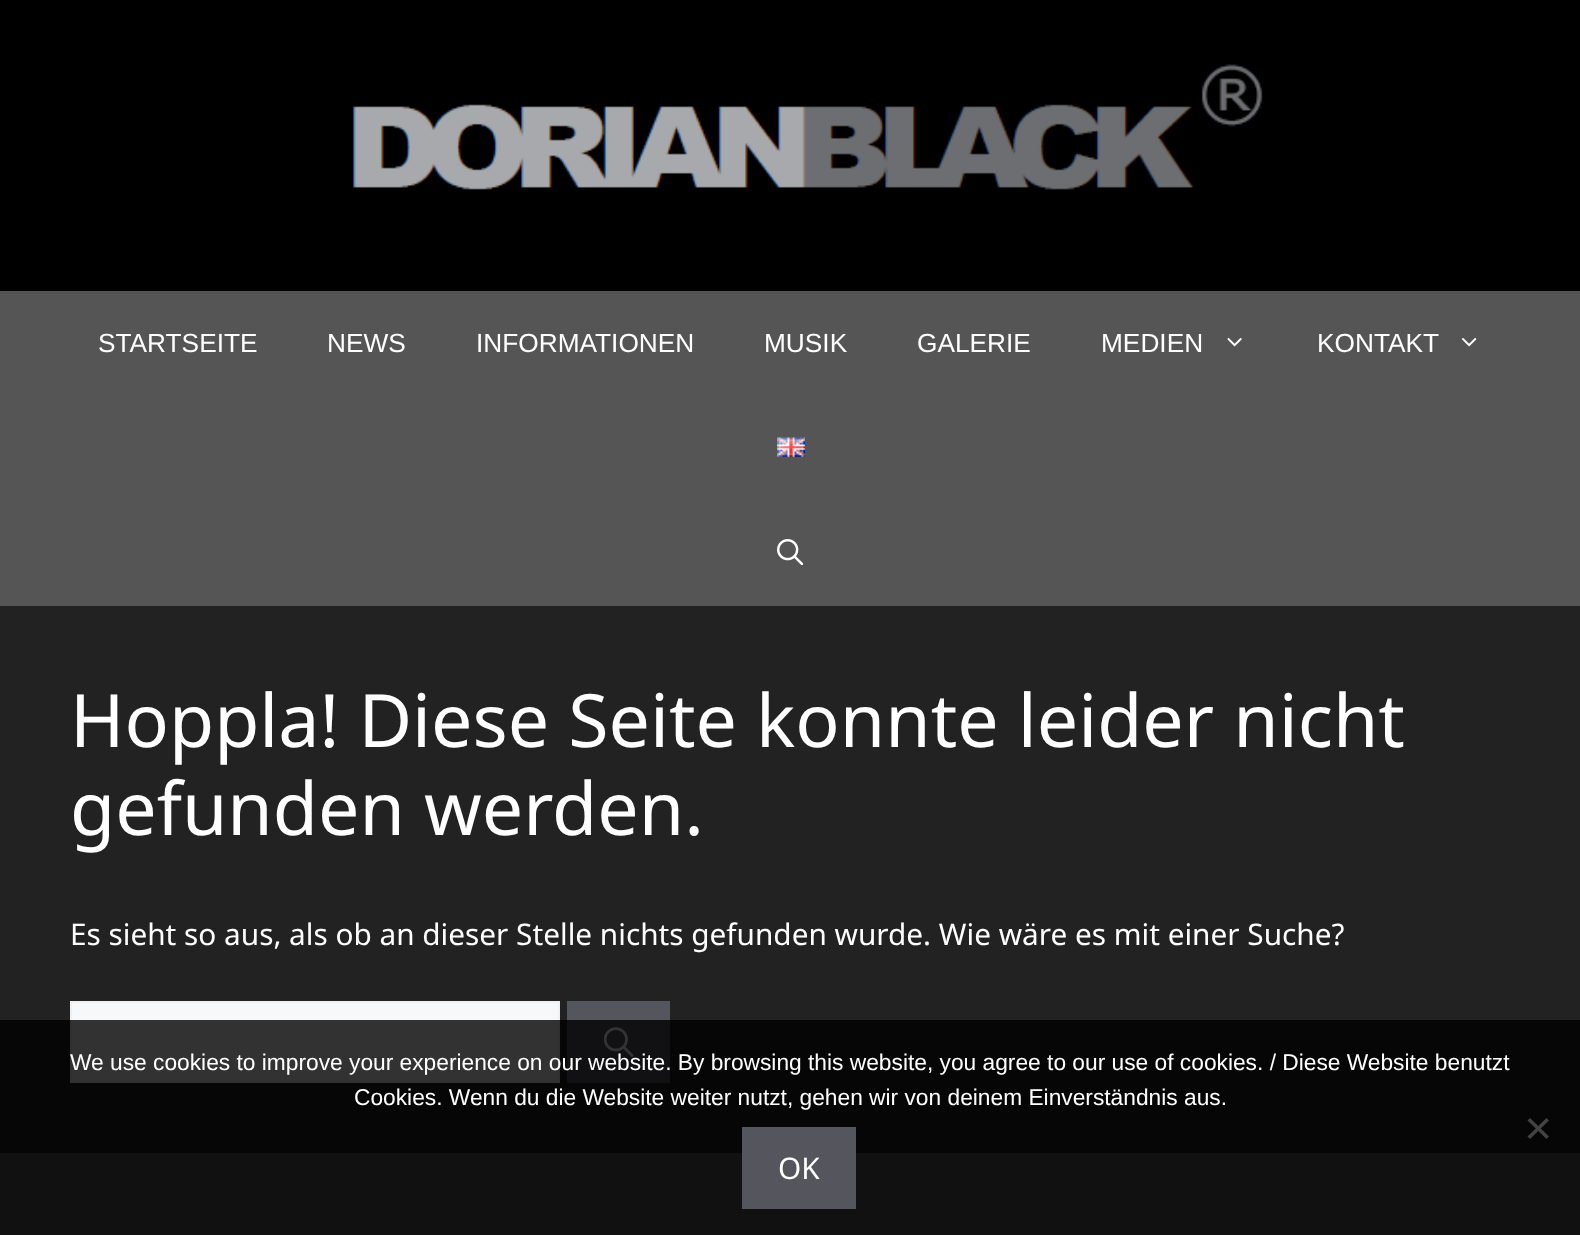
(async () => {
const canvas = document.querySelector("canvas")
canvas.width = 1580
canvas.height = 1235
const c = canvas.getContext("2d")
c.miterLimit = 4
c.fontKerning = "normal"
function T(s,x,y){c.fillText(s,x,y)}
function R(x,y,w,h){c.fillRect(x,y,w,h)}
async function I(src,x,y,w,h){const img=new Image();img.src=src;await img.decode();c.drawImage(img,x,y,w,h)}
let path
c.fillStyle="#000"
R(0,0,1580,1235)
await I("1.png",351,64,912,126)
c.fillStyle="#555"
R(0,291,1580,315)
c.font="26.25px Liberation Sans"
c.fillStyle="#fff"
T("STARTSEITE",98,352)
T("NEWS",327,352)
T("INFORMATIONEN",476,352)
T("MUSIK",764,352)
T("GALERIE",917,352)
T("MEDIEN",1101,352)
await I("2.png",1227,338,15,9)
T("KONTAKT",1317,352)
await I("3.png",1461,338,16,9)
await I("4.png",777,437,28,20)
await I("5.png",777,539,26,26)
c.fillStyle="#222"
R(0,606,1580,547)
c.font="73.5px Noto Sans"
c.fillStyle="#fff"
T("Hoppla! Diese Seite konnte leider nicht",70,747)
T("gefunden werden.",70,835)
c.font="29.75px Noto Sans"
T("Es sieht so aus, als ob an dieser Stelle nichts gefunden wurde. Wie wäre es mit einer Suche?",70,945)
c.fillStyle="#f7f8f9"
c.beginPath()
c.rect(71,1002,488,80)
c.fill()
c.strokeStyle="#f0f0f0"
c.lineWidth=2
c.stroke()
c.fillStyle="#55555e"
R(567,1001,103,82)
await I("6.png",604,1027,30,30)
c.fillStyle="#555"
R(0,1153,1580,82)
c.fillStyle="#000000cc"
R(0,1020,1580,215)
c.font="22.75px Liberation Sans"
c.fillStyle="#fff"
T("We use cookies to improve your experience on our website. By browsing this website, you agree to our use of cookies. / Diese Website benutzt",70,1070)
T("Cookies. Wenn du die Website weiter nutzt, gehen wir von deinem Einverständnis aus.",354,1105)
c.fillStyle="#434343"
path = new Path2D("M1546.5 1118l2.5 2.5l-19 18.5l-2.5-2.5z")
c.fill(path)
path = new Path2D("M1527.5 1120.5l2.5-2.5l19 18.5l-2.5 2.5z")
c.fill(path)
c.fillStyle="#55555e"
R(742,1127,114,82)
c.font="29.75px Noto Sans"
c.fillStyle="#fff"
T("OK",778,1179)
})()
